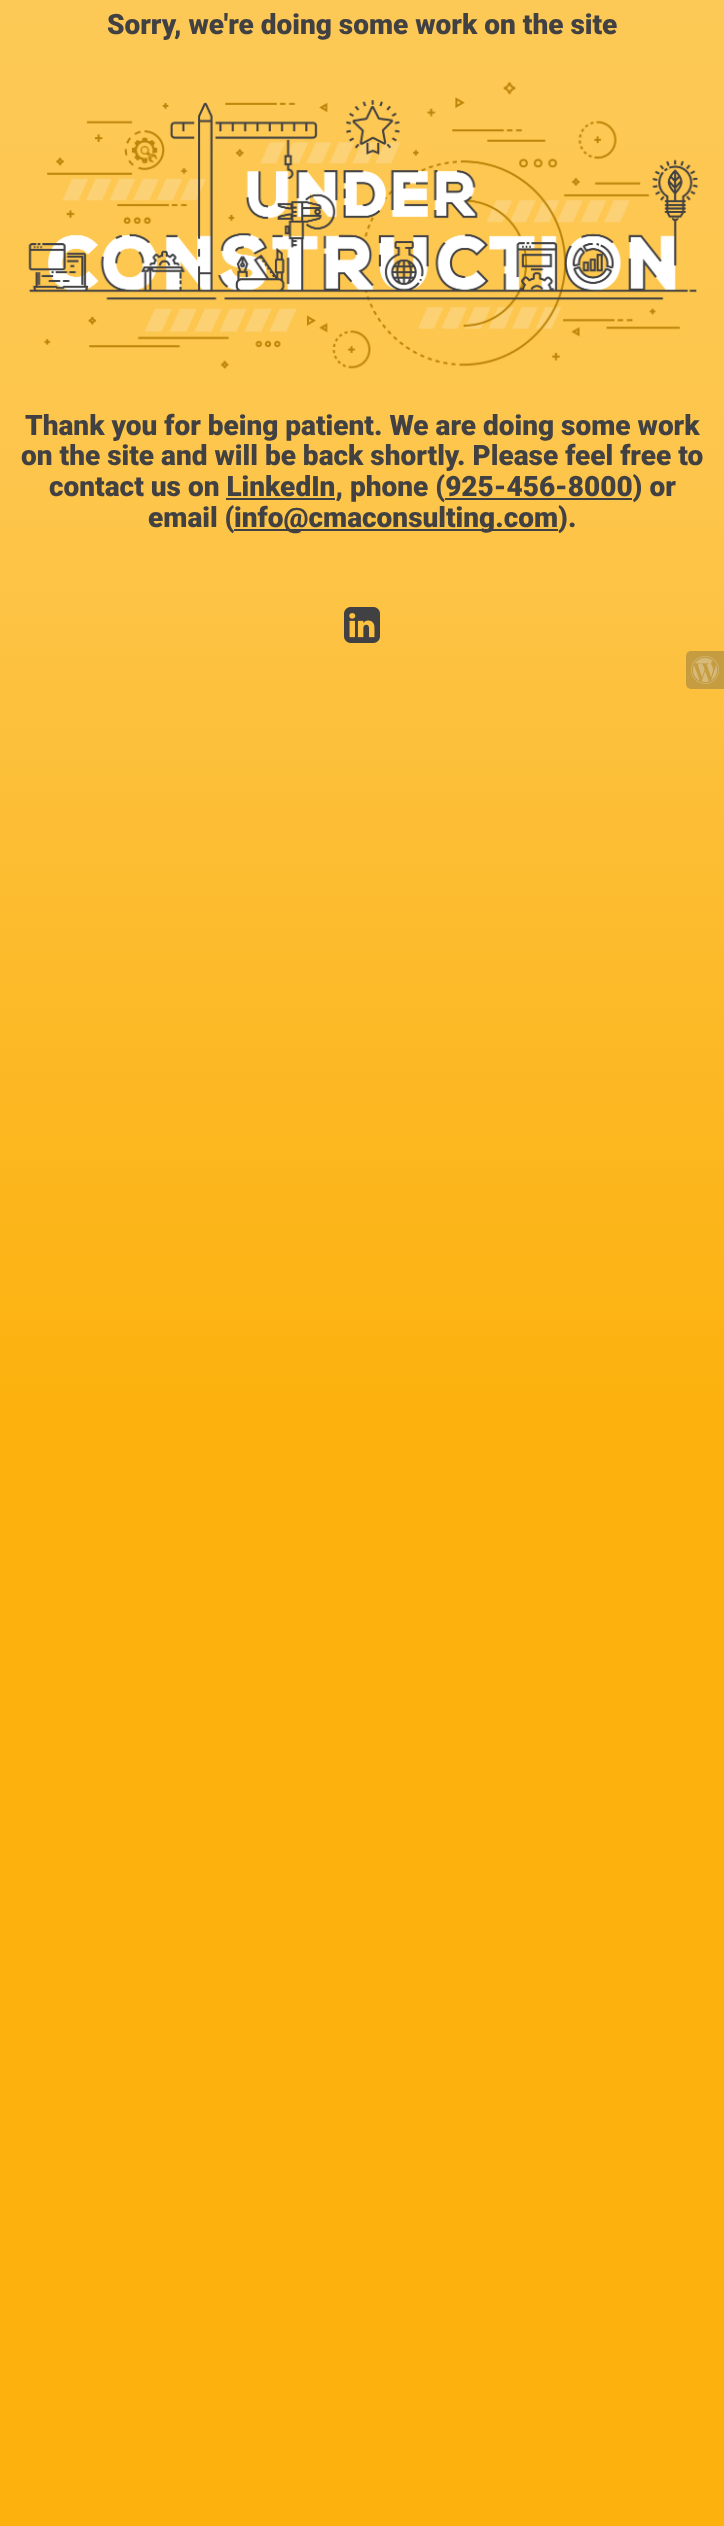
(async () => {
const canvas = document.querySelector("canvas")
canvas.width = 724
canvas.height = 2526
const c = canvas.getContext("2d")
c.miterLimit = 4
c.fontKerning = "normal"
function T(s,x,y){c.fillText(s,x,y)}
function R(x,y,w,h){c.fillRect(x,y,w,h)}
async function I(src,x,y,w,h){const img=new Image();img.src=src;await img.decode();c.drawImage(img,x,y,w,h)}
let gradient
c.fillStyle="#fff"
R(0,0,724,2526)
gradient = c.createLinearGradient(362,2526,362,0)
gradient.addColorStop(0,"#fcb10d")
gradient.addColorStop(.44,"#fcb10d")
gradient.addColorStop(.8,"#fdc54a")
gradient.addColorStop(1,"#fdc956")
c.fillStyle = gradient
R(0,0,724,2526)
c.font="900 28px Roboto"
c.fillStyle="#414042"
T("Sorry, we're doing some work on the site",107,34)
await I("1.png",28,81,671,288)
T("Thank you for being patient. We are doing some work",25,435)
T("on the site and will be back shortly. Please feel free to",21,465)
T("contact us on LinkedIn, phone (925-456-8000) or",49,496)
R(226,498,109,2)
R(445,498,187,2)
T("email (",148,527)
R(234,529,324,2)
T("info@cmaconsulting.com).",234,527)
await I("2.png",344,607,36,36)
c.fillStyle="#c69c41"
c.beginPath()
c.roundRect(686,651,38,38,[5,0,0,5])
c.fill()
await I("3.png",691,656,28,28)
})()
